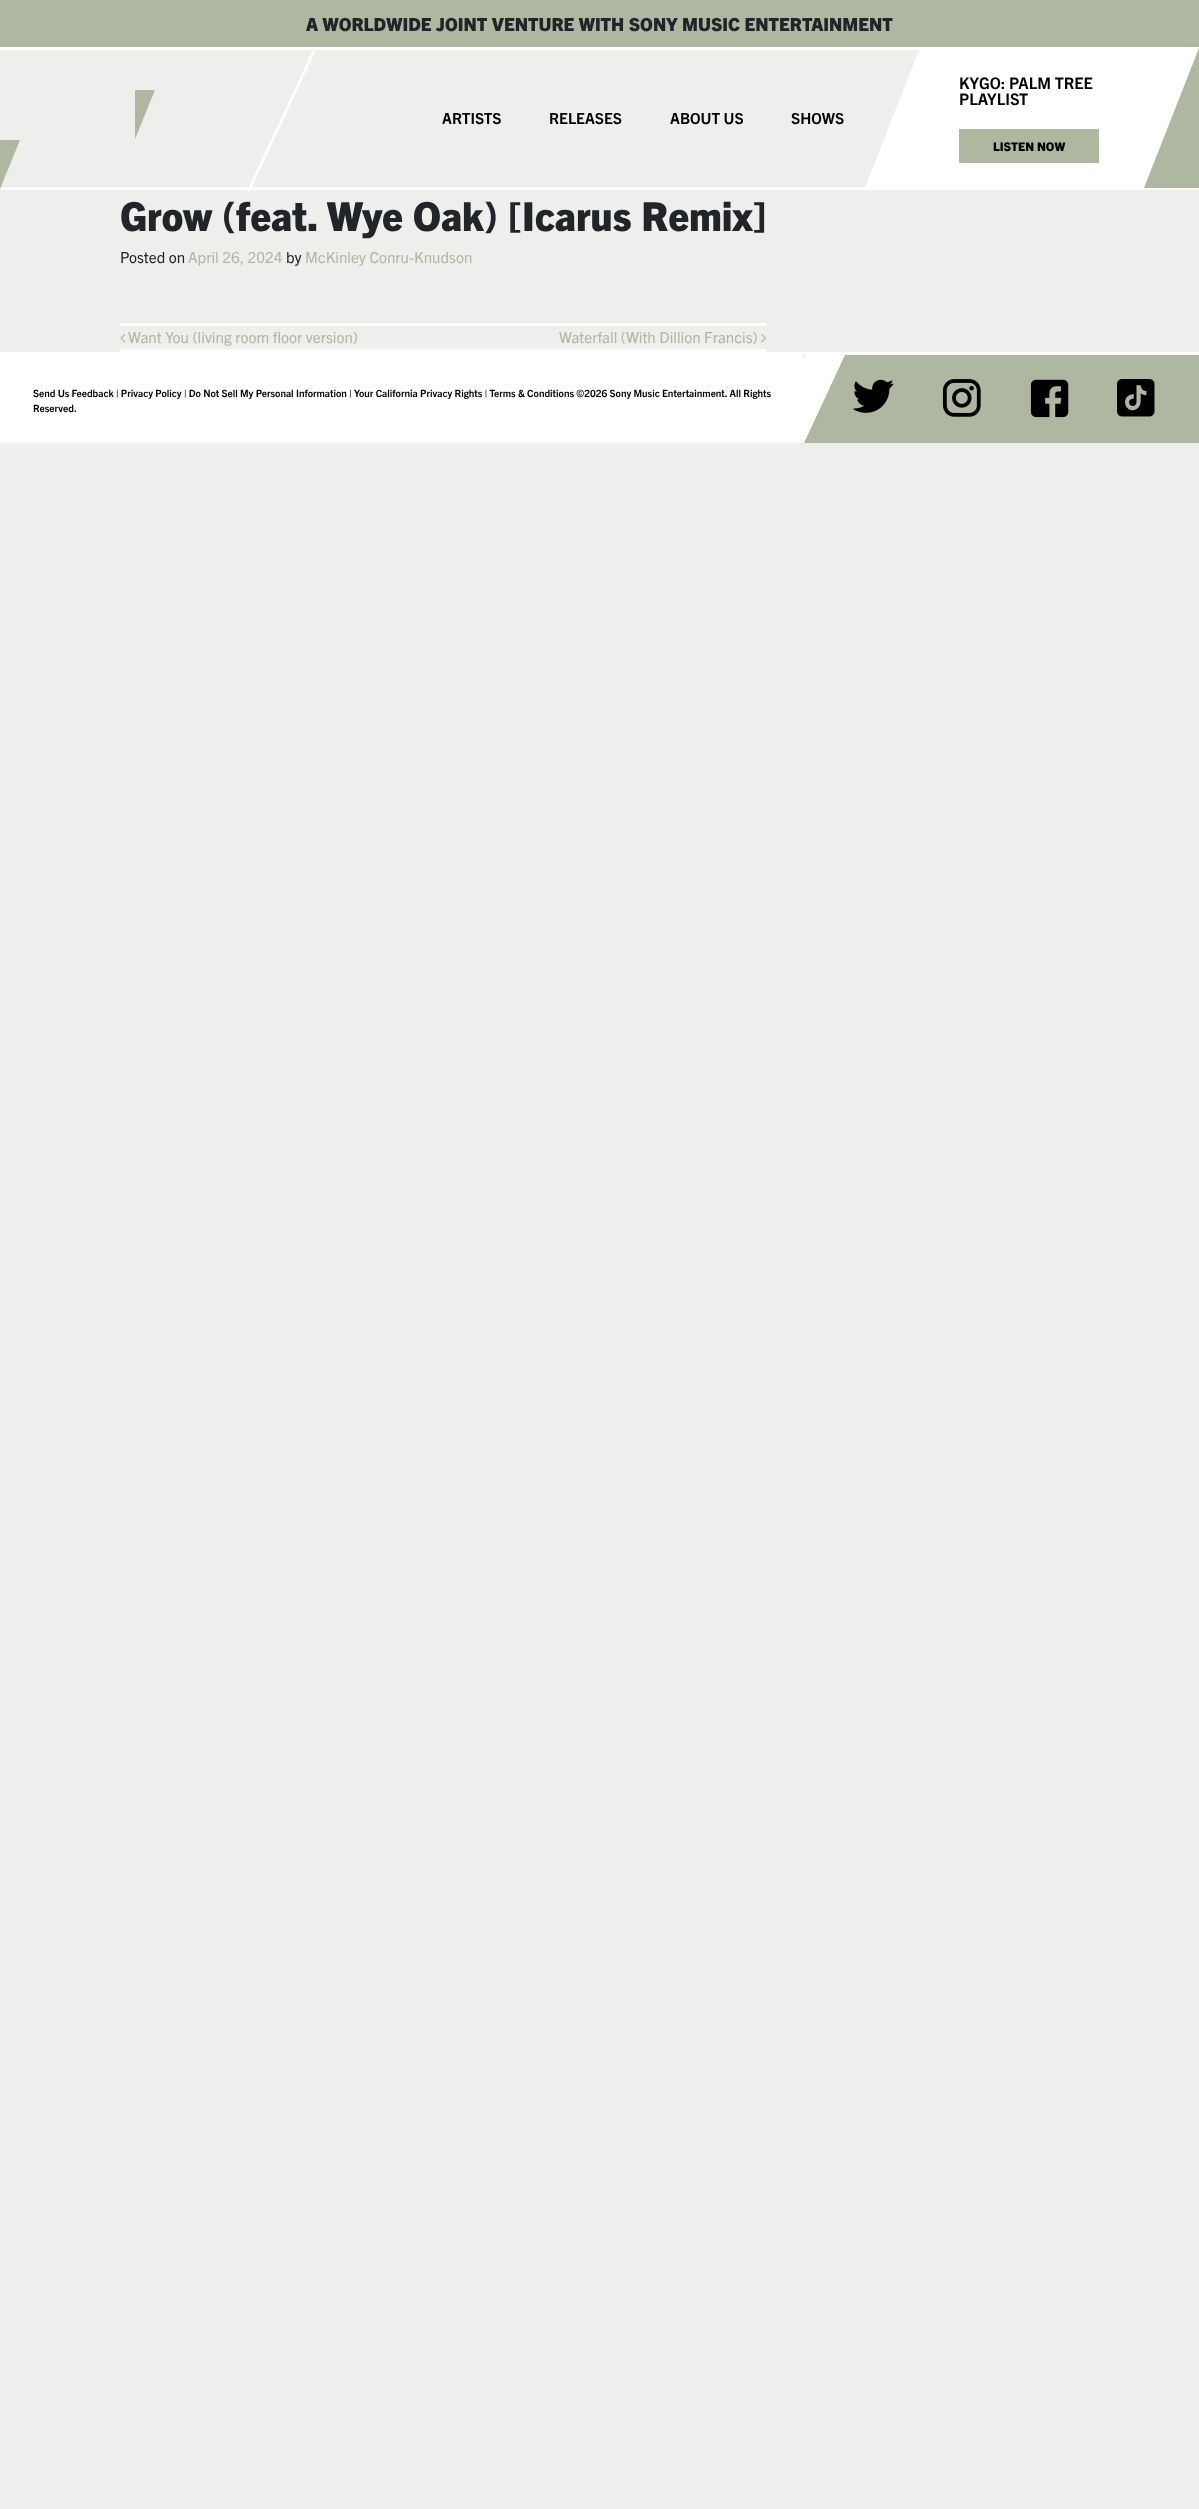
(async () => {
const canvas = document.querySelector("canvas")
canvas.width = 1199
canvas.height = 2509
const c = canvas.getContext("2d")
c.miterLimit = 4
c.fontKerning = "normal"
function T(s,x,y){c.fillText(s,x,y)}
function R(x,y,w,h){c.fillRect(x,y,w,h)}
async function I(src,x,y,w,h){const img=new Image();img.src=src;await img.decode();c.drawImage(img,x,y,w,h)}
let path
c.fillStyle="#eeeeec"
R(0,0,1199,2509)
c.fillStyle="#afb7a0"
R(0,0,1199,47)
c.font="800 18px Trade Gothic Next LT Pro"
c.fillStyle="#212529"
T("A WORLDWIDE JOINT VENTURE WITH SONY MUSIC ENTERTAINMENT",306,31)
c.fillStyle="#fff"
R(0,47,1199,3)
R(0,187,1199,3)
path = new Path2D("M313 50h3l-66 141h-3z")
c.fill(path)
c.font="bold 15.25px Trade Gothic Next LT Pro"
c.fillStyle="#000"
T("ARTISTS",442,124)
T("RELEASES",549,124)
T("ABOUT US",670,124)
T("SHOWS",791,124)
c.fillStyle="#fff"
R(919,50,280,137)
path = new Path2D("M919 50v140h-55z")
c.fill(path)
c.font="bold 16px Trade Gothic Next LT Pro"
c.fillStyle="#000"
T("KYGO: PALM TREE",959,89)
T("PLAYLIST",959,105)
c.fillStyle="#afb7a0"
path = new Path2D("M1199 48v140h-55z")
c.fill(path)
R(959,129,140,34)
c.font="800 12px Trade Gothic Next LT Pro"
c.fillStyle="#000"
T("LISTEN NOW",993,151)
c.fillStyle="#afb7a0"
path = new Path2D("M0 140h20l-20 49z")
c.fill(path)
c.font="800 40px Trade Gothic Next LT Pro"
c.fillStyle="#212529"
T("Grow (feat. Wye Oak) [Icarus Remix]",120,231)
c.font="15.25px Trade Gothic Next LT Pro"
T("Posted on",120,263)
c.fillStyle="#afb7a0"
T("April 26, 2024",188,263)
c.fillStyle="#212529"
T("by",286,263)
c.fillStyle="#afb7a0"
T("McKinley Conru-Knudson",305,263)
c.fillStyle="#fff"
R(120,323,646,3)
R(120,349,646,3)
c.fillStyle="#afb7a0"
path = new Path2D("M135 90h20l-20 49z")
c.fill(path)
await I("1.png",120,334,6,9)
T("Want You (living room floor version)",128,343)
T("Waterfall (With Dillion Francis)",559,343)
await I("2.png",761,334,5,9)
c.fillStyle="#fff"
R(0,352,1199,3)
R(0,355,804,88)
c.font="bold 10px Trade Gothic Next LT Pro"
c.fillStyle="#000"
T("Send Us Feedback | Privacy Policy | Do Not Sell My Personal Information | Your California Privacy Rights | Terms & Conditions ©2026 Sony Music Entertainment. All Rights",33,397)
T("Reserved.",33,412)
c.fillStyle="#afb7a0"
R(804,355,395,88)
c.fillStyle="#fff"
path = new Path2D("M805 355h40l-41 88h-40z")
c.fill(path)
await I("3.png",853,379,41,34)
await I("4.png",942,379,39,38)
await I("5.png",1030,379,39,39)
await I("6.png",1117,379,38,38)
})()
